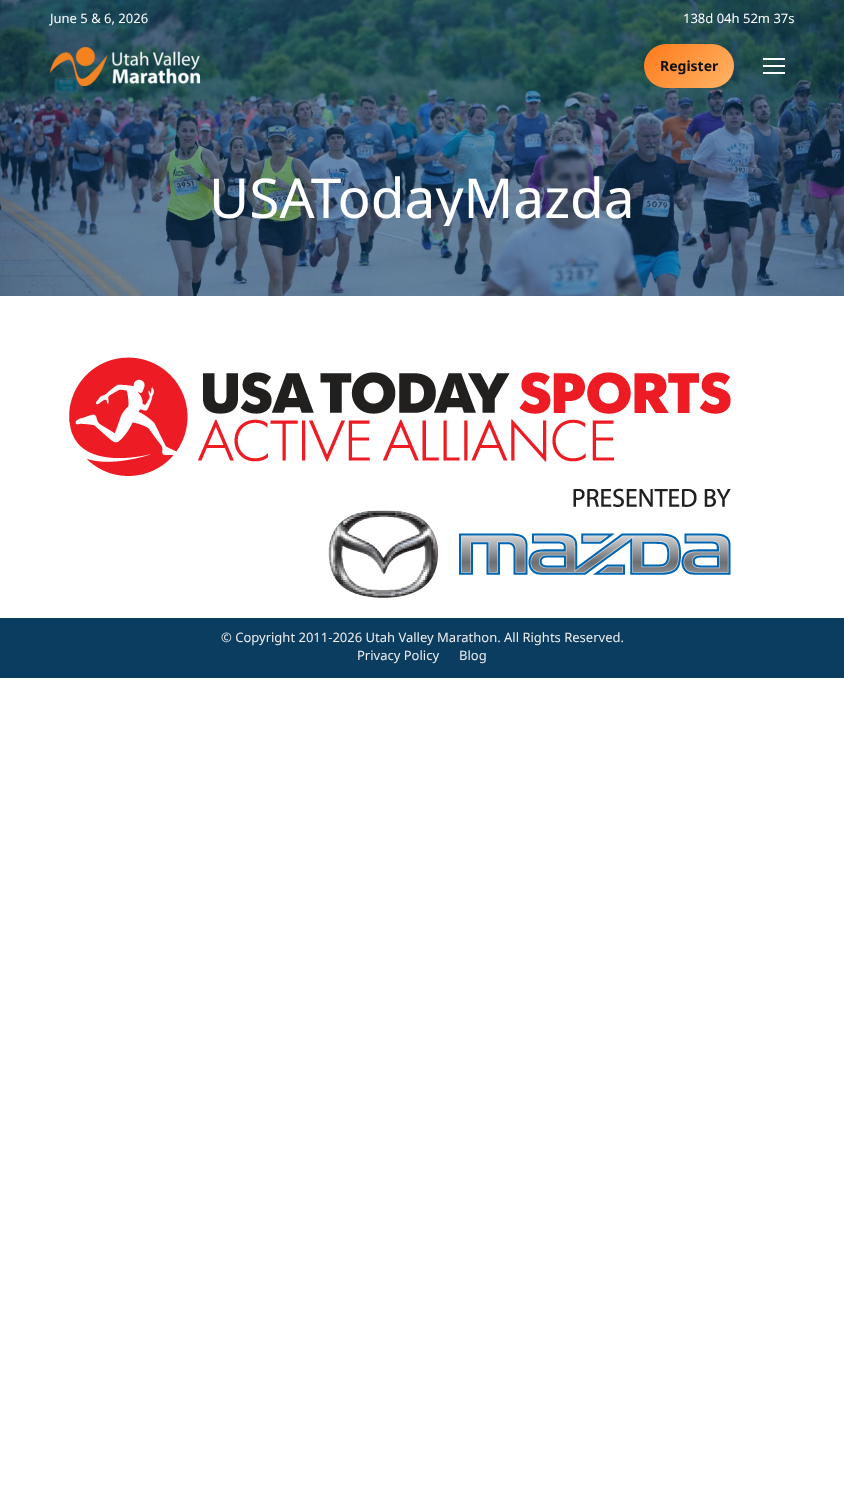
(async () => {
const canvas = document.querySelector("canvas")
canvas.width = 844
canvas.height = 1508
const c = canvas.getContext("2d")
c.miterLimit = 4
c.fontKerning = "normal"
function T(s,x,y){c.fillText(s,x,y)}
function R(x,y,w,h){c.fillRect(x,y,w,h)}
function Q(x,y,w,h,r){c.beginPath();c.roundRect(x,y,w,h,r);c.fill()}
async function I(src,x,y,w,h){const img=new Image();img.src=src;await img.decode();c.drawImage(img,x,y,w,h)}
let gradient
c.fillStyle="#fff"
R(0,0,844,1508)
await I("2.png",0,0,844,296)
c.font="13px Noto Sans"
T("June 5 & 6, 2026",50,23)
T("138d 04h 52m 37s",683,23)
await I("1.png",50,47,150,39)
gradient = c.createLinearGradient(656,33,723,100)
gradient.addColorStop(0,"#ff7a1a")
gradient.addColorStop(1,"#ffb569")
c.fillStyle = gradient
Q(644,44,90,44,22)
c.font="bold 14px Noto Sans"
c.fillStyle="#111"
T("Register",660,71)
c.fillStyle="#fff"
R(763,58,22,2)
R(763,65,22,2)
R(763,72,22,2)
c.save()
c.beginPath()
c.rect(209,167,426,59)
c.clip()
c.font="55px Noto Sans"
T("USATodayMazda",209,218)
c.restore()
await I("3.png",69,357,662,241)
c.fillStyle="#0b3d60"
R(0,618,844,60)
c.font="13px Noto Sans"
c.fillStyle="#eee"
T("© Copyright 2011-2026 Utah Valley Marathon. All Rights Reserved.",221,642)
T("Privacy Policy",357,660)
T("Blog",459,660)
})()
